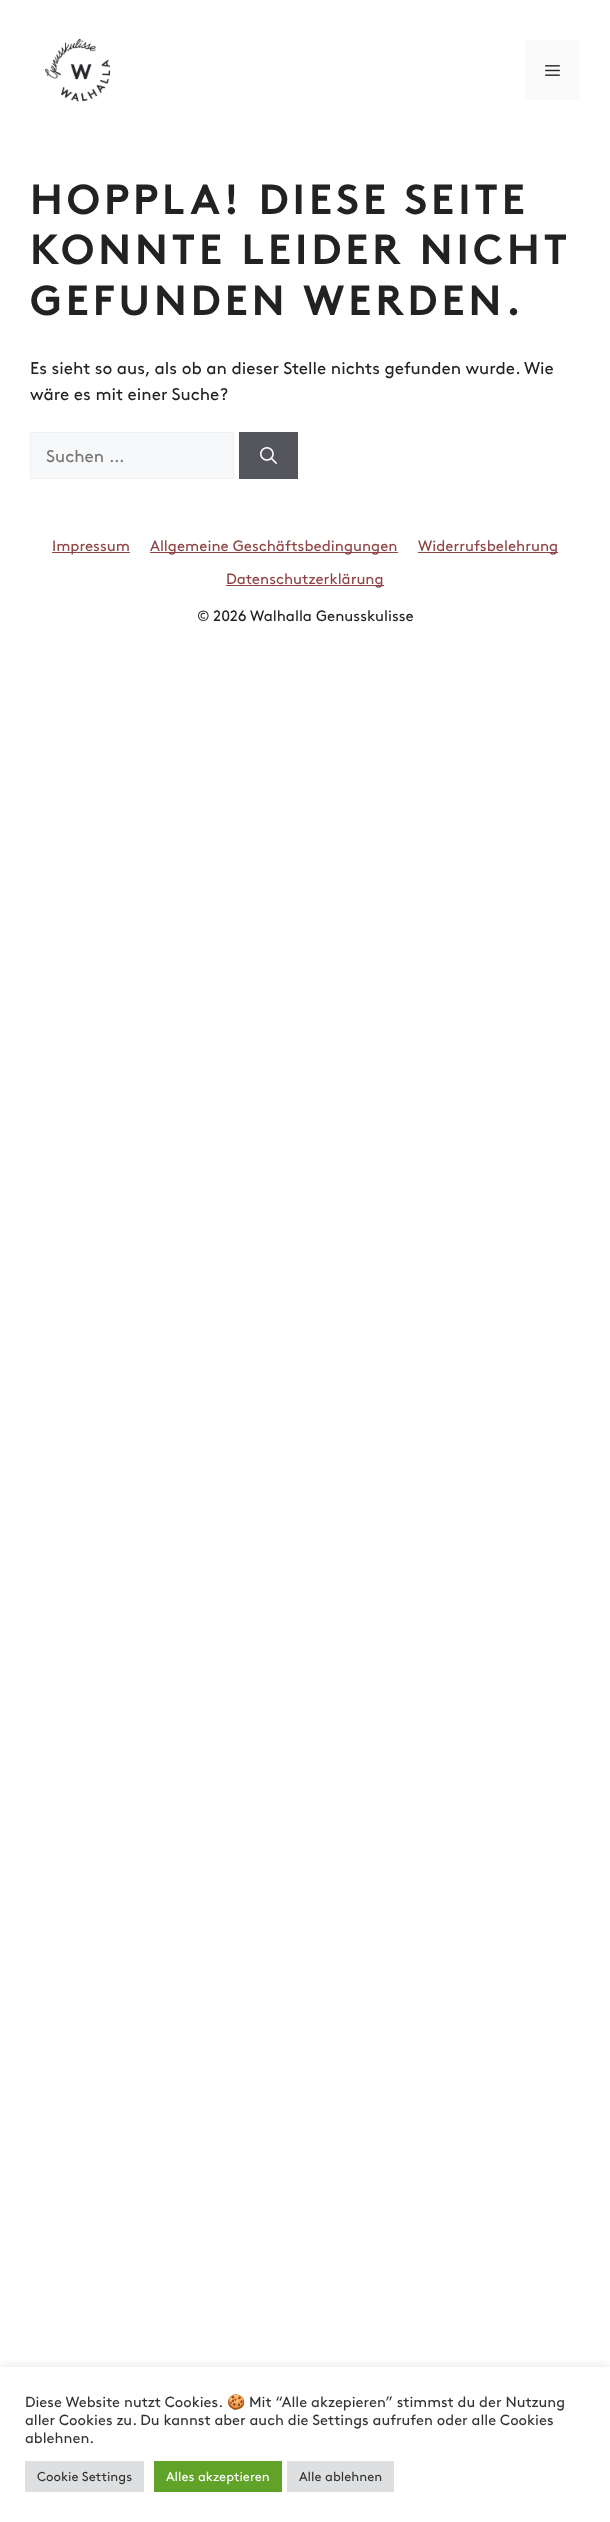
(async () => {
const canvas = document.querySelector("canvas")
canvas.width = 610
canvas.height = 2522
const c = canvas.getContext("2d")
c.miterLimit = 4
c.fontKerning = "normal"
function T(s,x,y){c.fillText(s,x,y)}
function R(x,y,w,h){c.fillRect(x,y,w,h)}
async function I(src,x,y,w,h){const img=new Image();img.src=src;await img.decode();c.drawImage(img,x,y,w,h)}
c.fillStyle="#fff"
R(0,0,610,2522)
await I("1.png",45,38,66,64)
c.fillStyle="#fafafa"
R(525,40,55,60)
await I("2.png",545,65,15,11)
c.letterSpacing="4px"
c.font="bold 42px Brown"
c.fillStyle="#222"
T("HOPPLA! DIESE SEITE",30,214)
T("KONNTE LEIDER NICHT",30,264)
T("GEFUNDEN WERDEN.",30,315)
c.letterSpacing="0px"
c.font="17px Brown"
T("Es sieht so aus, als ob an dieser Stelle nichts gefunden wurde. Wie",30,374)
T("wäre es mit einer Suche?",30,400)
c.fillStyle="#f7f8f9"
c.beginPath()
c.rect(30.5,432.5,203,46)
c.fill()
c.strokeStyle="#f0f0f0"
c.stroke()
c.fillStyle="#757575"
T("Suchen …",46,462)
c.fillStyle="#55555e"
R(239,432,59,47)
await I("3.png",260,447,17,17)
c.fillStyle="#8e4444"
R(52,552,78,1)
c.font="15px Brown"
T("Impressum",52,551)
R(150,552,248,1)
T("Allgemeine Geschäftsbedingungen",150,551)
R(418,552,140,1)
T("Widerrufsbelehrung",418,551)
R(226,585,158,1)
T("Datenschutzerklärung",226,584)
c.fillStyle="#222"
T("© 2026 Walhalla Genusskulisse",197,621)
c.save()
c.beginPath()
c.rect(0,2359,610,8)
c.clip()
c.fillStyle="#acabab4d"
c.filter="blur(5px)"
c.beginPath()
c.rect(0,2366,610,155)
c.fill()
c.filter="none"
c.restore()
c.font="14.65px Brown"
c.fillStyle="#333"
T("Diese Website nutzt Cookies.",25,2407)
c.font="14.65px Noto Color Emoji"
T("🍪",227,2407)
c.font="14.65px Brown"
T("Mit “Alle akzepieren” stimmst du der Nutzung",249,2407)
T("aller Cookies zu. Du kannst aber auch die Settings aufrufen oder alle Cookies",25,2425)
T("ablehnen.",25,2443)
c.fillStyle="#dedfe0"
R(25,2461,119,31)
c.font="13px Brown"
c.fillStyle="#333"
T("Cookie Settings",37,2481)
c.fillStyle="#61a229"
R(154,2461,128,31)
c.fillStyle="#fff"
T("Alles akzeptieren",166,2481)
c.fillStyle="#dedfe0"
R(287,2461,107,31)
c.fillStyle="#333"
T("Alle ablehnen",299,2481)
})()
